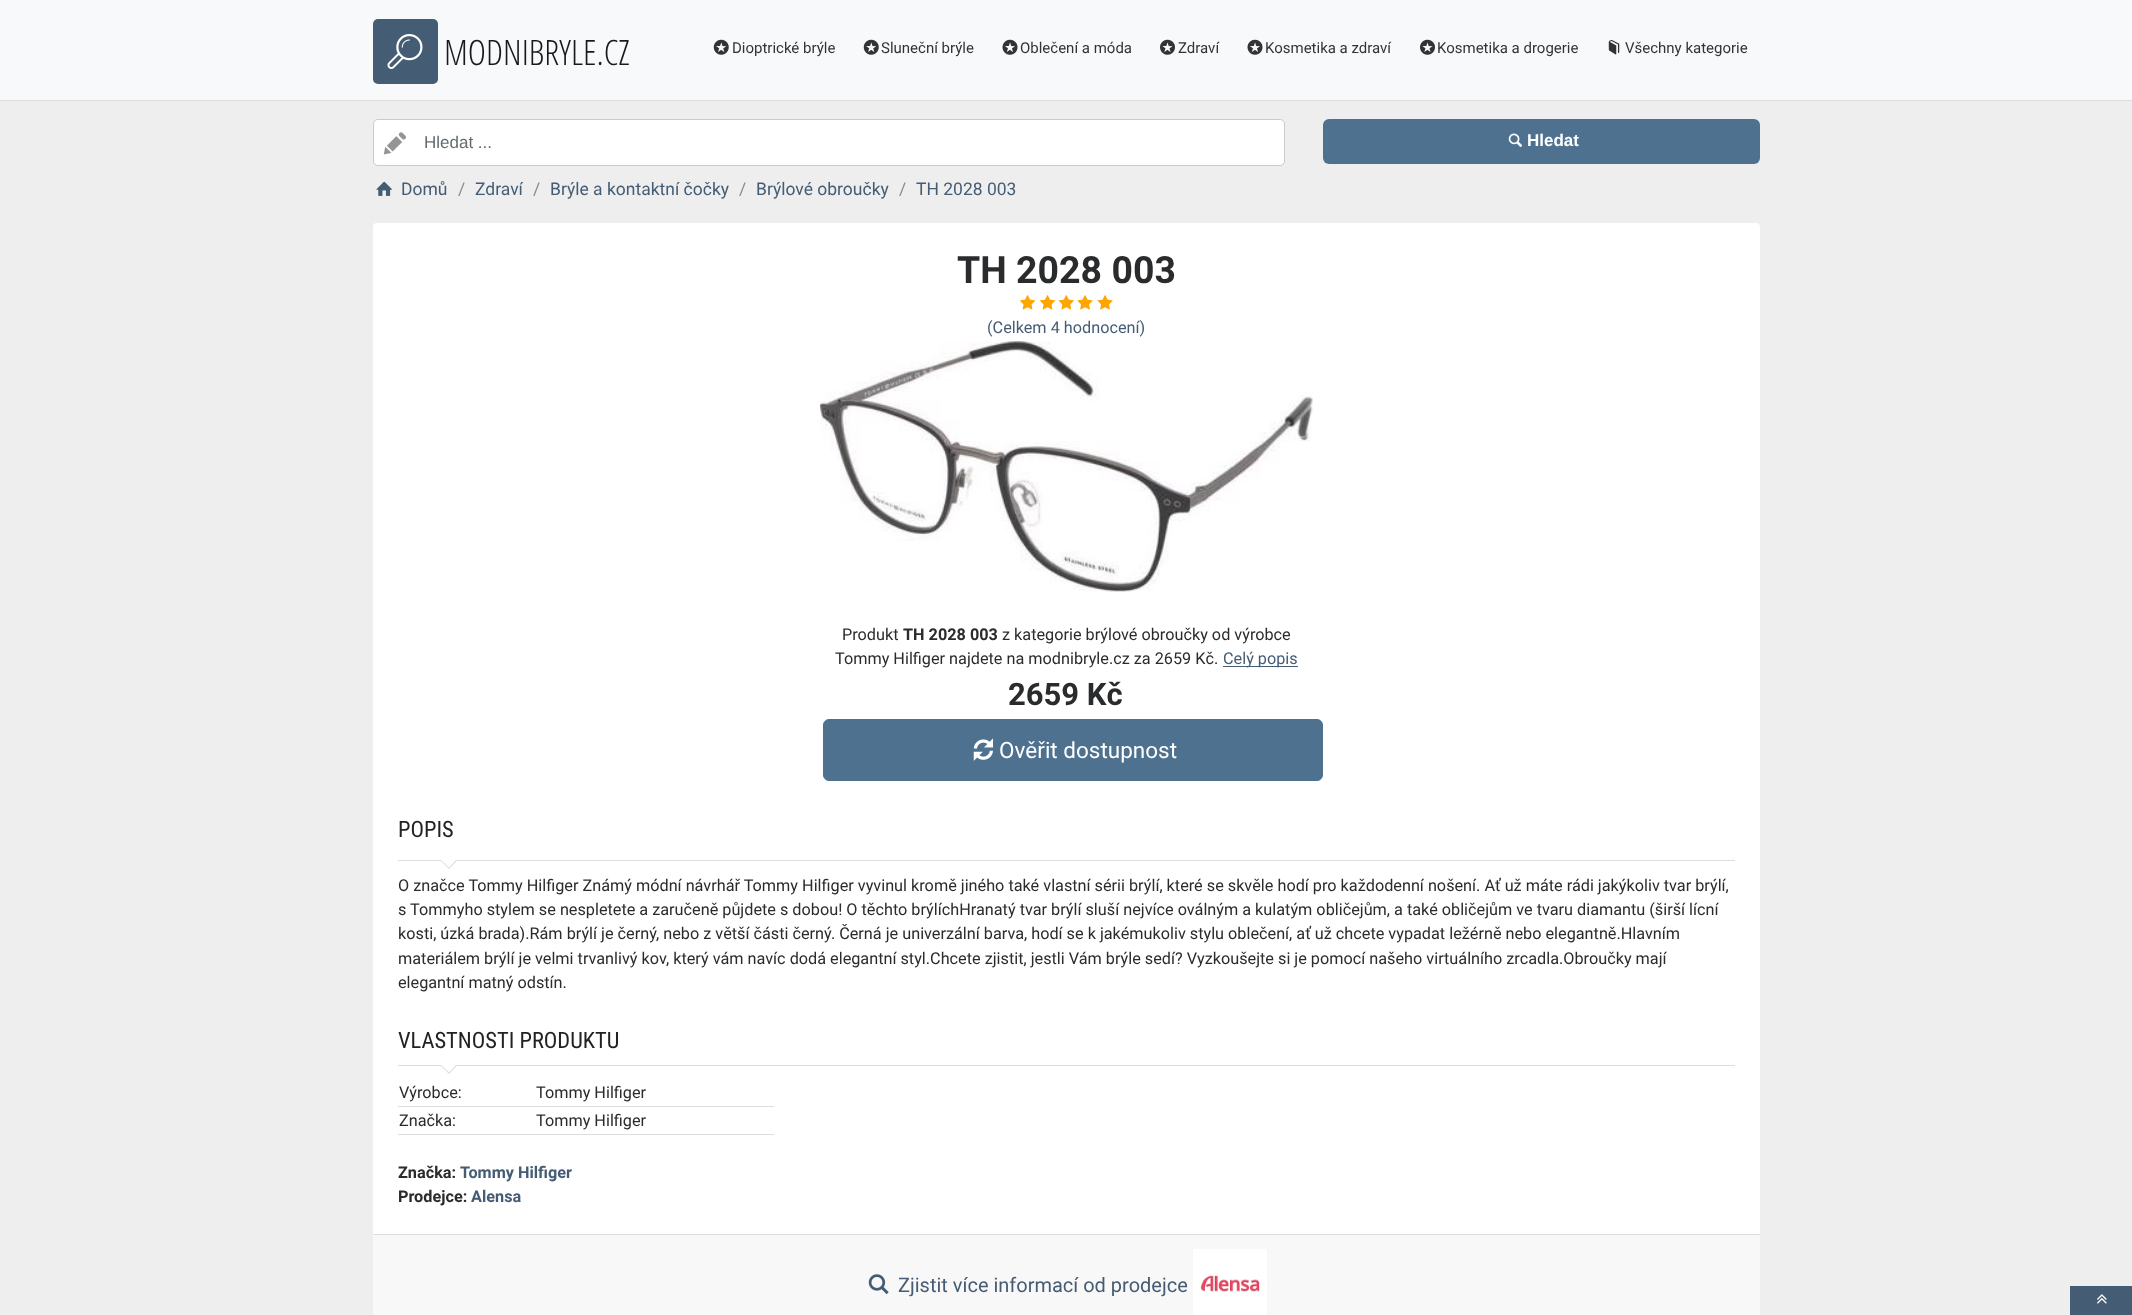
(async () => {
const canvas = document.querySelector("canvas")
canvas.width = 2132
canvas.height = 1315
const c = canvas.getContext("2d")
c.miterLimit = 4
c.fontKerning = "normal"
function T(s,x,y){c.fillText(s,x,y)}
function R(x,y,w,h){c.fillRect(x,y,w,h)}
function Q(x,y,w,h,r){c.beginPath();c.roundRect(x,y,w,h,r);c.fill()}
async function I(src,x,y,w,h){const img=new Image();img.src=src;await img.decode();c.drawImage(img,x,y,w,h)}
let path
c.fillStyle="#eee"
R(0,0,2132,1315)
c.fillStyle="#f8f9fa"
R(0,0,2132,100)
c.fillStyle="#ddd"
R(0,100,2132,1)
c.fillStyle="#445c74"
Q(373,19,65,65,5)
await I("1.png",387,34,36,35)
c.font="300 35px Open Sans Condensed"
c.fillStyle="#191919"
T("MODNIBRYLE.CZ",444,65)
await I("2.png",713,39,16,16)
c.font="15px Roboto"
c.fillStyle="#333"
T("Dioptrické brýle",732,53)
await I("2.png",863,39,16,16)
T("Sluneční brýle",881,53)
await I("3.png",1002,39,16,16)
T("Oblečení a móda",1020,53)
await I("4.png",1160,39,15,16)
T("Zdraví",1178,53)
await I("3.png",1247,39,16,16)
T("Kosmetika a zdraví",1265,53)
await I("4.png",1420,39,15,16)
T("Kosmetika a drogerie",1437,53)
await I("5.png",1608,40,12,15)
T("Všechny kategorie",1625,53)
c.fillStyle="#fff"
Q(374,120,910,45,4)
c.beginPath()
c.roundRect(373.5,119.5,911,46,4.5)
c.strokeStyle="#00000026"
c.stroke()
await I("6.png",383,132,23,23)
c.font="17px Liberation Sans"
c.fillStyle="#636c72"
T("Hledat ...",424,148)
c.fillStyle="#4d718f"
Q(1323,119,437,45,6)
await I("7.png",1508,133,15,14)
c.font="bold 17px Liberation Sans"
c.fillStyle="#fff"
T("Hledat",1527,146)
await I("8.png",376,181,16,15)
c.font="17.5px Roboto"
c.fillStyle="#445c74"
T("Domů",401,195)
c.fillStyle="#868e96"
T("/",458,195)
c.fillStyle="#445c74"
T("Zdraví",475,195)
c.fillStyle="#868e96"
T("/",533,195)
c.fillStyle="#445c74"
T("Brýle a kontaktní čočky",550,195)
c.fillStyle="#868e96"
T("/",739,195)
c.fillStyle="#445c74"
T("Brýlové obroučky",756,195)
c.fillStyle="#868e96"
T("/",899,195)
c.fillStyle="#445c74"
T("TH 2028 003",916,195)
c.fillStyle="#b4b4b480"
c.filter="blur(0.5px)"
c.beginPath()
c.roundRect(373,224,1387,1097,4)
c.fill()
c.filter="none"
c.fillStyle="#fff"
Q(373,223,1387,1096,4)
c.font="bold 37.5px Roboto"
c.fillStyle="#292b2c"
T("TH 2028 003",957,283)
await I("9.png",1020,295,15,15)
await I("9.png",1040,295,15,15)
await I("10.png",1058,295,16,15)
await I("11.png",1077,295,16,15)
await I("11.png",1097,295,16,15)
c.font="16.25px Roboto"
c.fillStyle="#445c74"
T("(Celkem 4 hodnocení)",987,333)
await I("12.png",820,341,493,251)
c.fillStyle="#292b2c"
T("Produkt",842,640)
c.font="bold 16.25px Roboto"
T("TH 2028 003",903,640)
c.font="16.25px Roboto"
T("z kategorie brýlové obroučky od výrobce",1002,640)
T("Tommy Hilfiger najdete na modnibryle.cz za 2659 Kč.",835,664)
c.fillStyle="#445c74"
R(1223,666,75,1)
T("Celý popis",1223,664)
c.font="bold 31px Roboto"
c.fillStyle="#292b2c"
T("2659 Kč",1008,705)
c.fillStyle="#4d718f"
c.beginPath()
c.roundRect(823.5,719.5,499,61,5.5)
c.fill()
c.strokeStyle="#4d718f"
c.stroke()
await I("13.png",973,738,21,23)
c.font="22.5px Roboto"
c.fillStyle="#fff"
T("Ověřit dostupnost",999,758)
c.fillStyle="#ddd"
R(398,860,1337,1)
c.font="22.5px Roboto Condensed"
c.fillStyle="#222"
T("POPIS",398,837)
c.fillStyle="#ddd"
path = new Path2D("M440 860h17.5l-8.5 9z")
c.fill(path)
c.fillStyle="#fff"
path = new Path2D("M441 860h15l-7 7.5z")
c.fill(path)
c.font="16.25px Roboto"
c.fillStyle="#292b2c"
T("O značce Tommy Hilfiger Známý módní návrhář Tommy Hilfiger vyvinul kromě jiného také vlastní sérii brýlí, které se skvěle hodí pro každodenní nošení. Ať už máte rádi jakýkoliv tvar brýlí,",398,891)
T("s Tommyho stylem se nespletete a zaručeně půjdete s dobou! O těchto brýlíchHranatý tvar brýlí sluší nejvíce oválným a kulatým obličejům, a také obličejům ve tvaru diamantu (širší lícní",398,915)
T("kosti, úzká brada).Rám brýlí je černý, nebo z větší části černý. Černá je univerzální barva, hodí se k jakémukoliv stylu oblečení, ať už chcete vypadat ležérně nebo elegantně.Hlavním",398,939)
T("materiálem brýlí je velmi trvanlivý kov, který vám navíc dodá elegantní styl.Chcete zjistit, jestli Vám brýle sedí? Vyzkoušejte si je pomocí našeho virtuálního zrcadla.Obroučky mají",398,964)
T("elegantní matný odstín.",398,988)
c.fillStyle="#ddd"
R(398,1065,1337,1)
c.font="22.5px Roboto Condensed"
c.fillStyle="#222"
T("VLASTNOSTI PRODUKTU",398,1048)
c.fillStyle="#ddd"
path = new Path2D("M440 1065h17.5l-8.5 9z")
c.fill(path)
c.fillStyle="#fff"
path = new Path2D("M441 1065h15l-7 7.5z")
c.fill(path)
c.fillStyle="#ddd"
R(398,1106,376,1)
c.font="16.25px Roboto"
c.fillStyle="#292b2c"
T("Výrobce:",399,1098)
T("Tommy Hilfiger",536,1098)
c.fillStyle="#ddd"
R(398,1134,376,1)
c.fillStyle="#292b2c"
T("Značka:",399,1126)
T("Tommy Hilfiger",536,1126)
c.font="bold 16.25px Roboto"
T("Značka:",398,1178)
c.fillStyle="#445c74"
T("Tommy Hilfiger",460,1178)
c.fillStyle="#292b2c"
T("Prodejce:",398,1202)
c.fillStyle="#445c74"
T("Alensa",471,1202)
c.fillStyle="#f8f8f8"
R(373,1235,1387,80)
c.fillStyle="#ddd"
R(373,1234,1387,1)
await I("14.png",868,1274,21,21)
c.font="20px Roboto"
c.fillStyle="#445c74"
T("Zjistit více informací od prodejce",898,1292)
await I("15.png",1193,1249,74,66)
R(2070,1286,62,29)
await I("16.png",2097,1294,10,10)
})()
